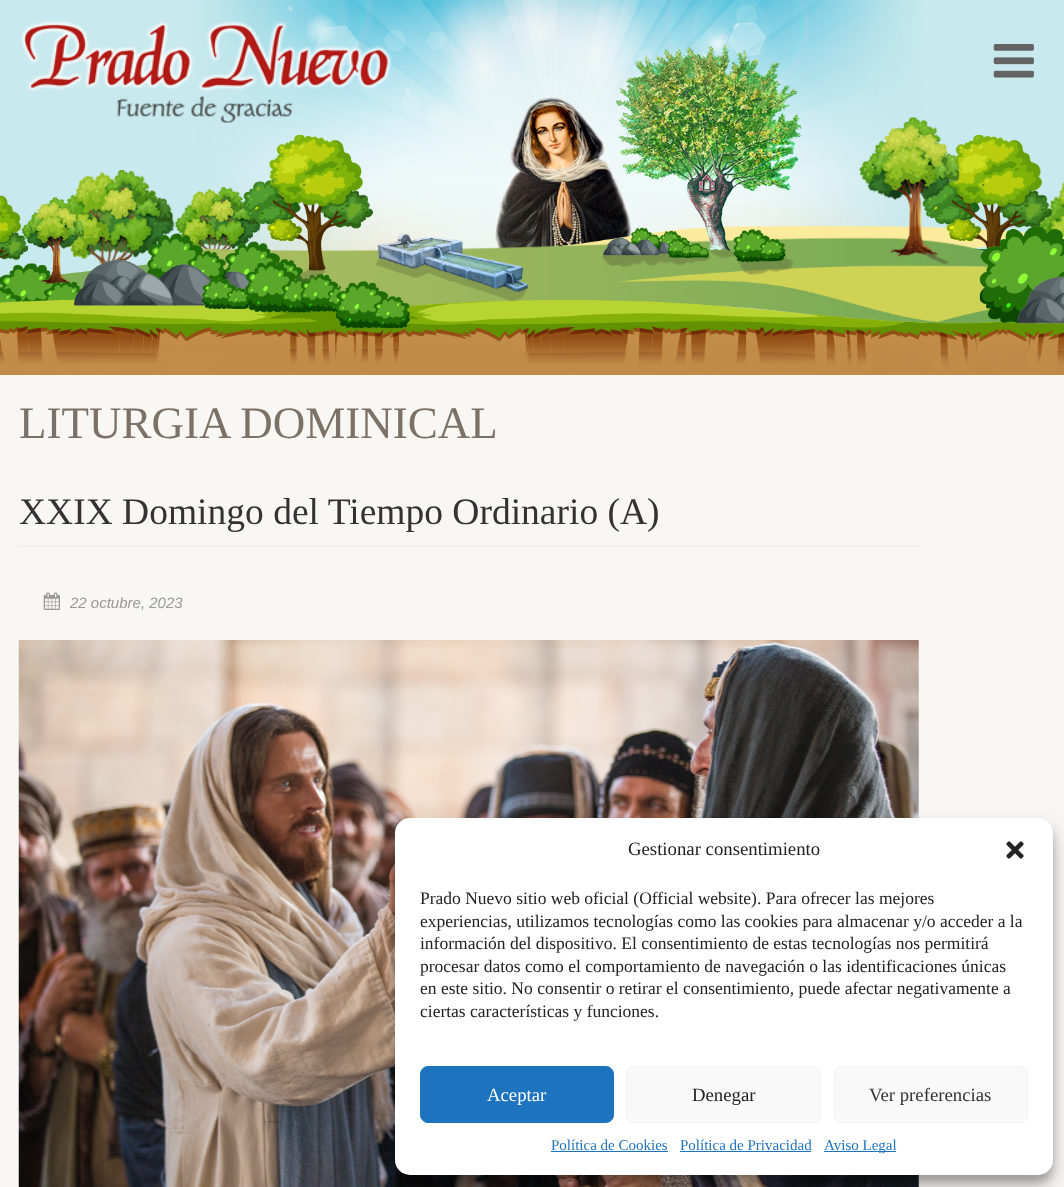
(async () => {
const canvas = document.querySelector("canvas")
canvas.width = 1064
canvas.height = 1187
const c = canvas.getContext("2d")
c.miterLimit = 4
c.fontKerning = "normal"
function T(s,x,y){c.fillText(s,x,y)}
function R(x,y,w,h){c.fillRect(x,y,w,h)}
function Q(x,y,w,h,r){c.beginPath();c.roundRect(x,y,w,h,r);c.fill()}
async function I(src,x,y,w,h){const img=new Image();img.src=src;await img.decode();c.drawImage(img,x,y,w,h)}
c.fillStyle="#f8f7f3"
R(0,0,1064,1187)
c.fillStyle="#c8e9ed"
R(0,0,1064,375)
await I("1.png",0,0,1064,375)
await I("2.png",21,20,371,103)
await I("3.png",993,44,41,34)
c.font="45px Liberation Serif"
c.fillStyle="#7c7166"
T("LITURGIA DOMINICAL",19,438)
c.fillStyle="#eceae4"
R(19,546,900,1)
c.font="37.5px Liberation Serif"
c.fillStyle="#333"
T("XXIX Domingo del Tiempo Ordinario (A)",19,524)
await I("4.png",43,592,17,18)
c.font="italic 15px Liberation Sans"
c.fillStyle="#999"
T("22 octubre, 2023",70,608)
await I("5.png",18,640,901,547)
c.fillStyle="#0000003b"
c.filter="blur(4px)"
c.beginPath()
c.roundRect(395,825,658,358,15)
c.fill()
c.filter="none"
c.fillStyle="#00000030"
c.filter="blur(12.5px)"
c.beginPath()
c.roundRect(395,830,658,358,15)
c.fill()
c.filter="none"
c.fillStyle="#fff"
Q(395,818,658,357,15)
c.font="18.75px Liberation Serif"
c.fillStyle="#222"
T("Gestionar consentimiento",628,855)
await I("6.png",1006,841,18,18)
c.font="17.5px Liberation Serif"
T("Prado Nuevo sitio web oficial (Official website). Para ofrecer las mejores",420,904)
T("experiencias, utilizamos tecnologías como las cookies para almacenar y/o acceder a la",420,927)
T("información del dispositivo. El consentimiento de estas tecnologías nos permitirá",420,949)
T("procesar datos como el comportamiento de navegación o las identificaciones únicas",420,972)
T("en este sitio. No consentir o retirar el consentimiento, puede afectar negativamente a",420,994)
T("ciertas características y funciones.",420,1017)
c.fillStyle="#1e73be"
c.beginPath()
c.roundRect(420.5,1066.5,193,56,7.5)
c.fill()
c.strokeStyle="#1e73be"
c.stroke()
c.font="18.75px Liberation Serif"
c.fillStyle="#fff"
T("Aceptar",487,1101)
c.fillStyle="#f9f9f9"
c.beginPath()
c.roundRect(626.5,1066.5,194,56,7.5)
c.fill()
c.strokeStyle="#f2f2f2"
c.stroke()
c.fillStyle="#222"
T("Denegar",692,1101)
c.fillStyle="#f9f9f9"
c.beginPath()
c.roundRect(834.5,1066.5,193,56,7.5)
c.fill()
c.stroke()
c.fillStyle="#333"
T("Ver preferencias",869,1101)
c.font="15px Liberation Serif"
c.fillStyle="#1e73be"
T("Política de Cookies",551,1150)
R(551,1151,117,1)
T("Política de Privacidad",680,1150)
R(680,1151,131,1)
R(824,1151,72,1)
T("Aviso Legal",824,1150)
})()
